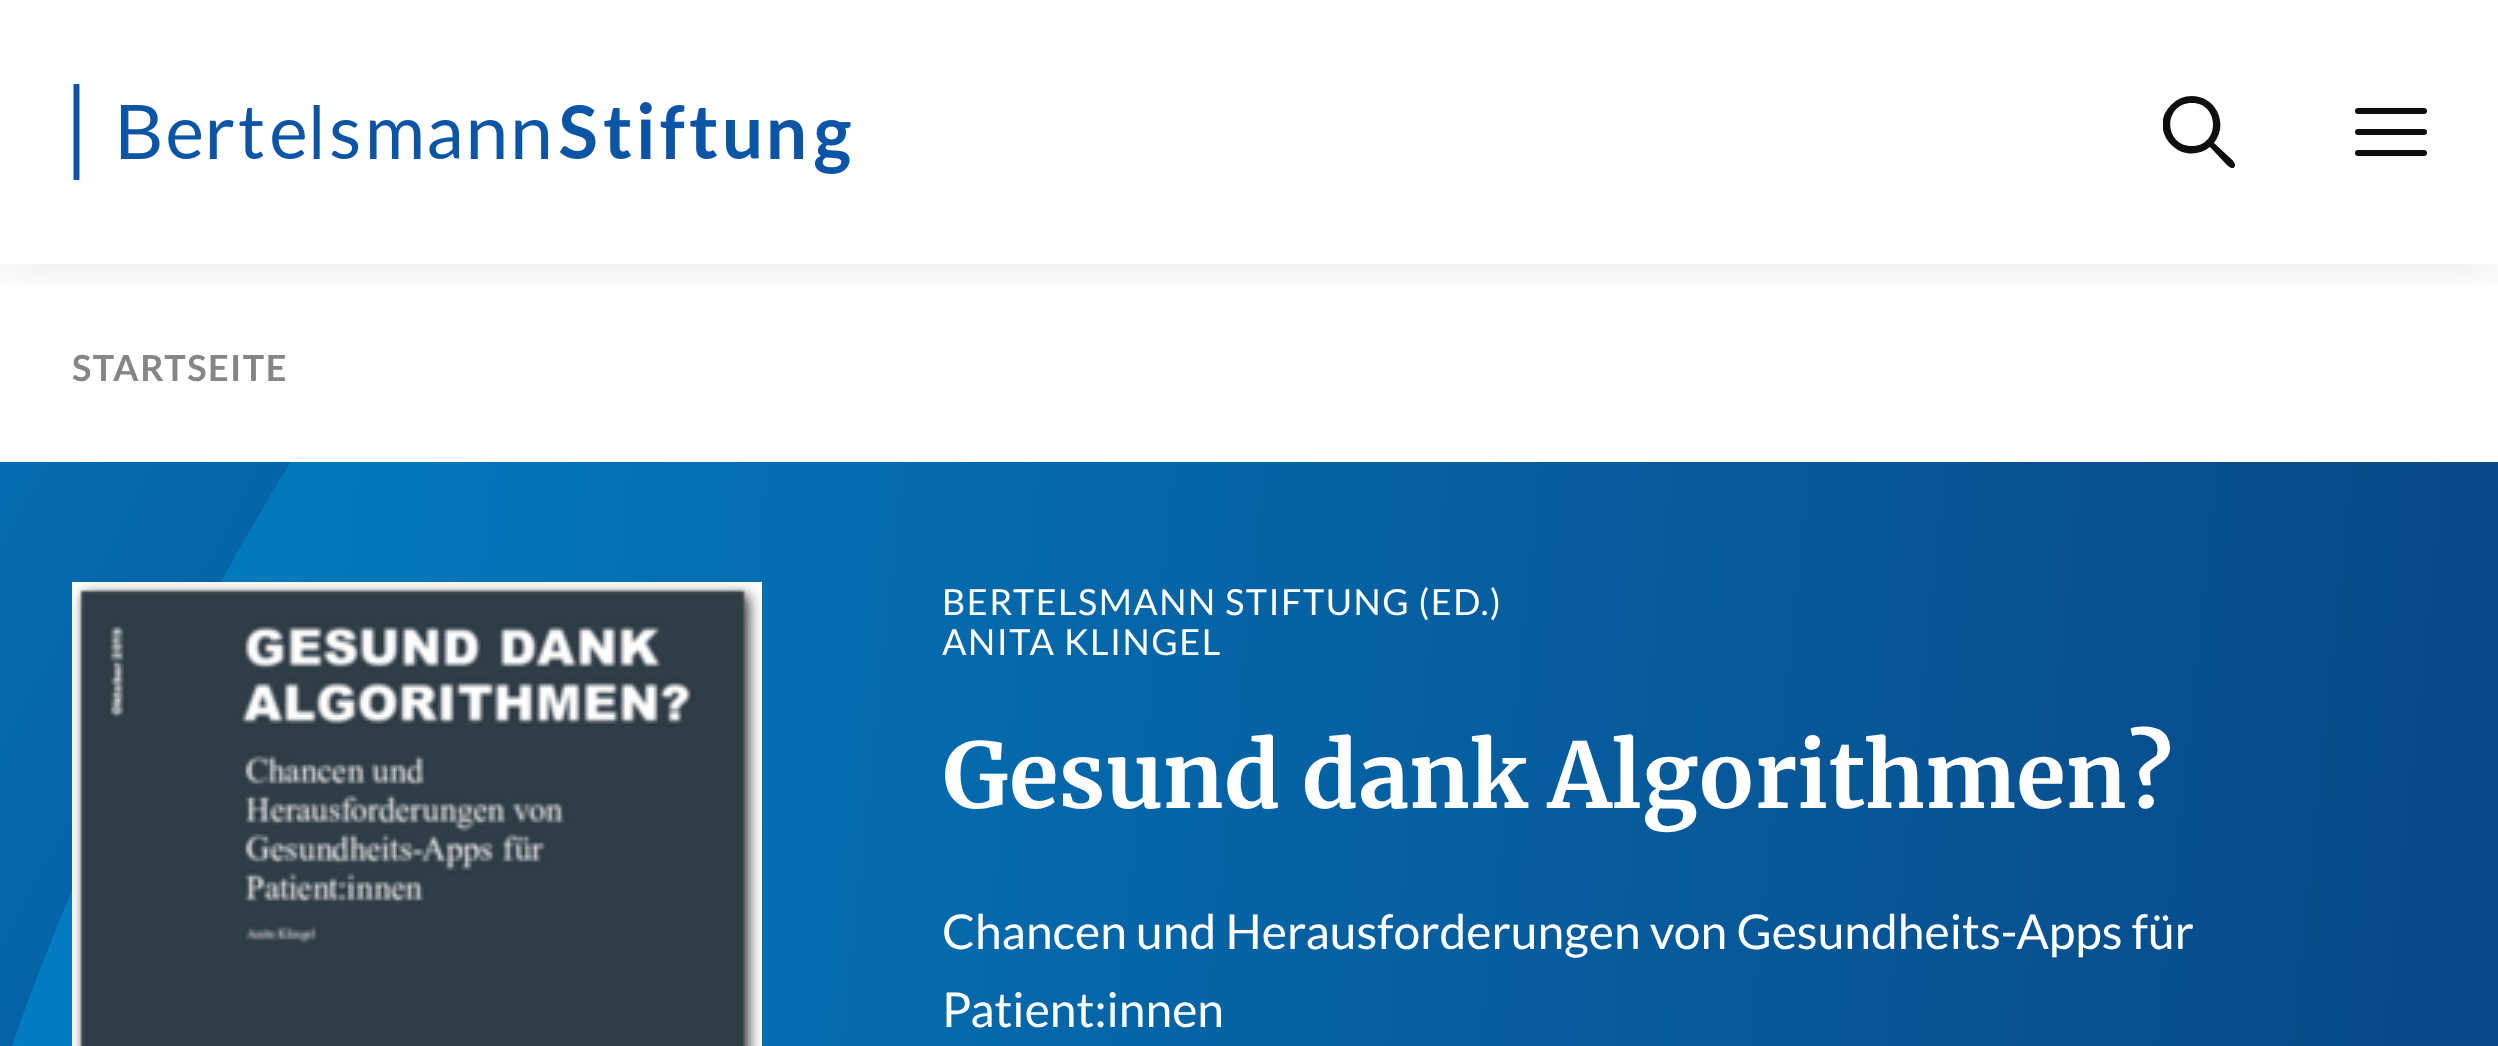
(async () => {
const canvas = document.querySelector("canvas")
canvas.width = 2498
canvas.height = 1046
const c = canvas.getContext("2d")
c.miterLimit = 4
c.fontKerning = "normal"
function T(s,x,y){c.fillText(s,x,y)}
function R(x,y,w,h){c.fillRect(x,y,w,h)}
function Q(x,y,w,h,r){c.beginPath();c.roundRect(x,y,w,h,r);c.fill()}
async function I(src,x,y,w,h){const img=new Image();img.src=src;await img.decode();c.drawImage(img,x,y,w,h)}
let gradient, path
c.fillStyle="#fff"
R(0,0,2498,1046)
c.save()
c.beginPath()
c.rect(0,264,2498,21)
c.clip()
c.fillStyle="#00000014"
c.filter="blur(22.5px)"
c.beginPath()
c.rect(0,6,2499,264)
c.fill()
c.filter="none"
c.restore()
await I("1.png",73,84,778,96)
c.save()
c.beginPath()
c.rect(2163,96,72,72)
c.clip()
c.fillStyle="#0e0e0e"
path = new Path2D("M2192 96c24 0 37 28 22 47l14 13c2 2 8 6 7 10c-2 5-7 0-9-2l-16-17c-29 22-64-17-39-42c6-6 13-9 21-9zm0 7c-29 0-29 43 0 43c28 0 28-43 0-43z")
c.fill(path)
c.restore()
c.fillStyle="#0e0e0e"
Q(2355,108,72,6,3)
Q(2355,129,72,6,3)
Q(2355,150,72,6,3)
c.letterSpacing="1.5px"
c.font="bold 36px Lato"
c.fillStyle="#868686"
T("STARTSEITE",72,381)
gradient = c.createLinearGradient(-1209,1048,622,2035)
gradient.addColorStop(0,"#0184ca")
gradient.addColorStop(1,"#094583")
c.fillStyle = gradient
R(0,462,291,584)
c.save()
c.beginPath()
c.rect(0,462,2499,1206)
c.clip()
gradient = c.createLinearGradient(-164,-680,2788,-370)
gradient.addColorStop(0,"#0184ca")
gradient.addColorStop(1,"#094583")
c.fillStyle = gradient
c.beginPath()
c.arc(2911,2071,3075,0,7)
c.fill()
c.restore()
await I("2.png",72,582,690,464)
c.font="36px Lato"
c.fillStyle="#fff"
T("BERTELSMANN STIFTUNG (ED.)",942,615)
T("ANITA KLINGEL",942,655)
c.letterSpacing="0px"
c.font="bold 90px Merriweather"
T("Gesund dank Algorithmen?",942,808)
c.font="48px Lato"
T("Chancen und Herausforderungen von Gesundheits-Apps für",942,949)
T("Patient:innen",942,1027)
})()
